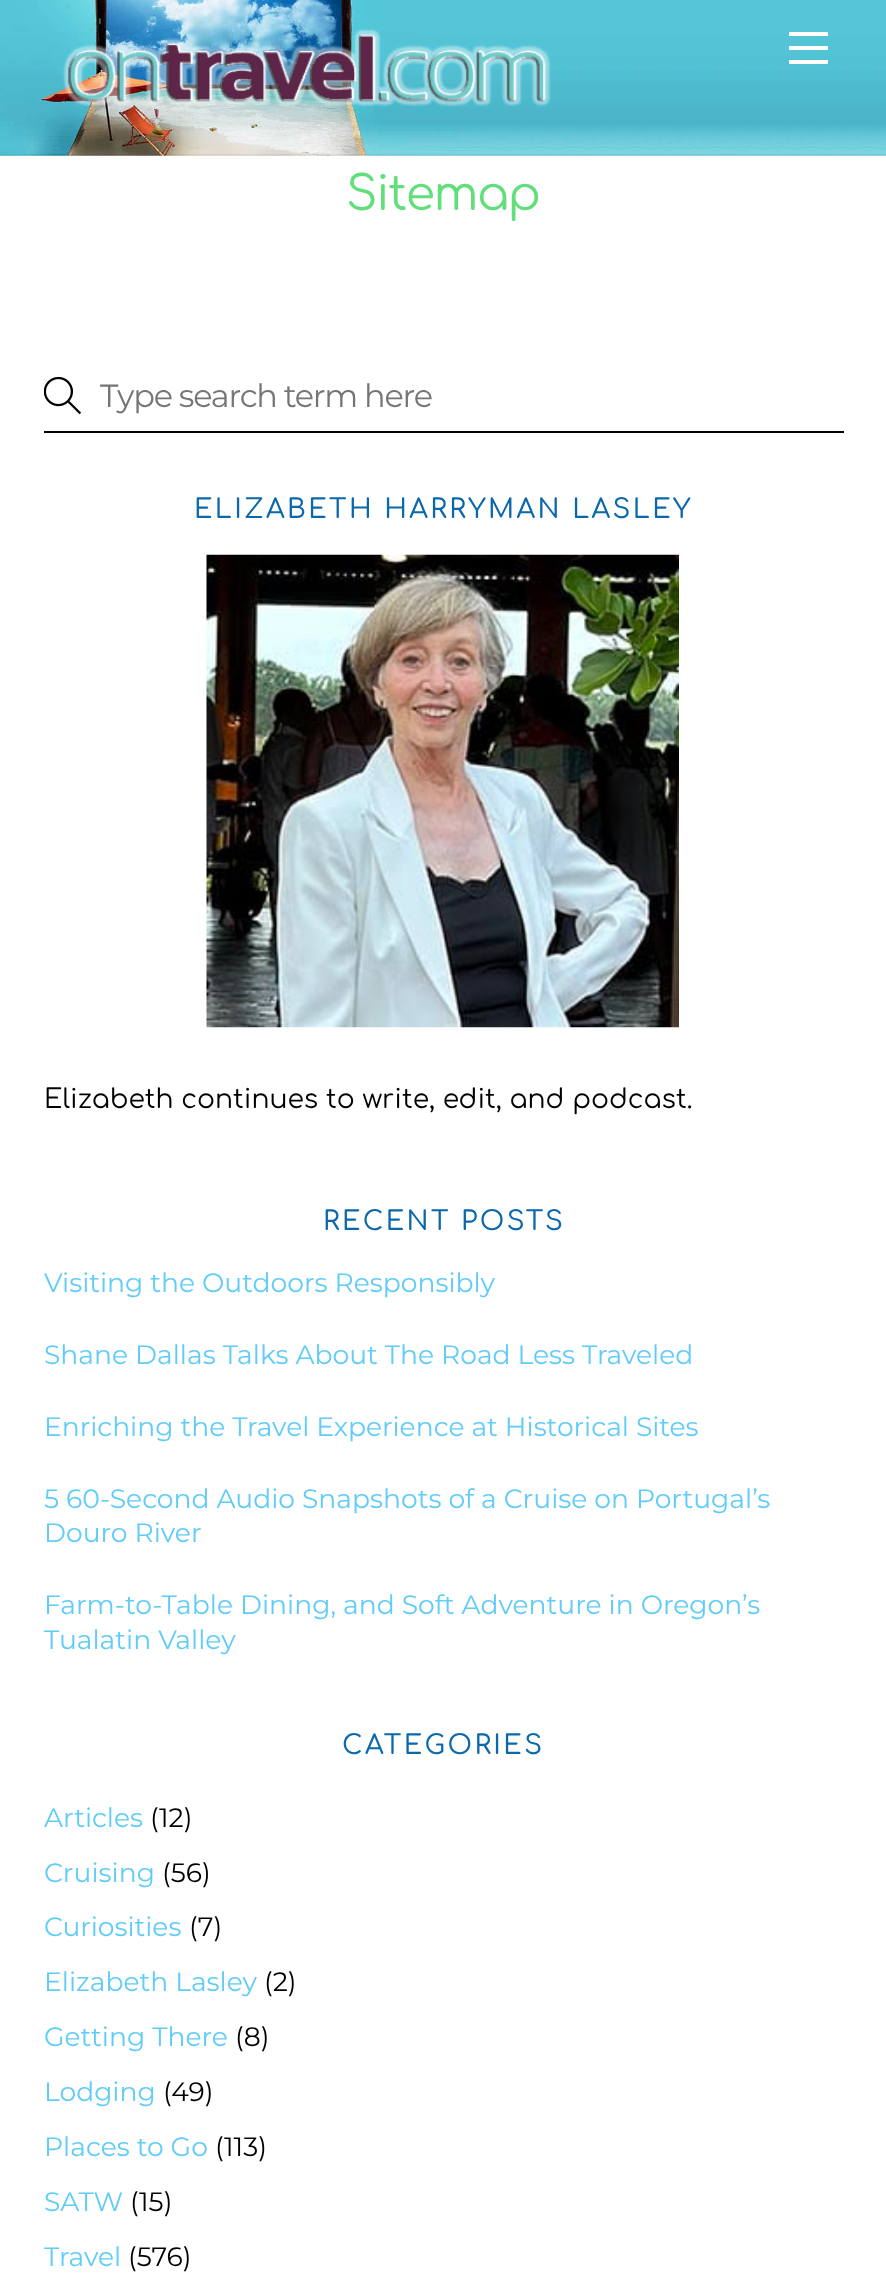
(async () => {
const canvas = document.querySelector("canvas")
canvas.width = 886
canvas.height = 2284
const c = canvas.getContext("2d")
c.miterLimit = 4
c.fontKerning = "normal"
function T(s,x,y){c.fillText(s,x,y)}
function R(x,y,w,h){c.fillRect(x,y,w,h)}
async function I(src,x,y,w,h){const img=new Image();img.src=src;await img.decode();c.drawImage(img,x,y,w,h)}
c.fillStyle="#fff"
R(0,0,886,2284)
await I("1.png",0,0,886,156)
c.fillStyle="#0000000d"
R(0,154,886,2)
await I("2.png",62,29,489,78)
c.fillStyle="#fff"
R(789,60,39,4)
R(789,32,39,4)
R(789,46,39,4)
c.letterSpacing="-1.5px"
c.font="47.5px Comfortaa"
c.fillStyle="#62de7c"
T("Sitemap",346,210)
c.fillStyle="#000"
R(44,431,800,2)
await I("3.png",44,377,37,38)
c.letterSpacing="-1.25px"
c.font="32px Montserrat"
c.fillStyle="#757575"
T("Type search term here",100,407)
c.letterSpacing="2.4px"
c.font="500 26.6px Comfortaa"
c.fillStyle="#0a68ab"
T("ELIZABETH HARRYMAN LASLEY",194,518)
await I("4.png",206,554,473,474)
c.letterSpacing="0px"
c.font="26.6px Comfortaa"
c.fillStyle="#000"
T("Elizabeth continues to write, edit, and podcast.",44,1108)
c.letterSpacing="2.4px"
c.font="500 26.6px Comfortaa"
c.fillStyle="#0a68ab"
T("RECENT POSTS",323,1230)
c.letterSpacing="0px"
c.font="26.6px Montserrat"
c.fillStyle="#60ccf7"
T("Visiting the Outdoors Responsibly",44,1292)
T("Shane Dallas Talks About The Road Less Traveled",44,1364)
T("Enriching the Travel Experience at Historical Sites",44,1436)
T("5 60-Second Audio Snapshots of a Cruise on Portugal’s",44,1508)
T("Douro River",44,1542)
T("Farm-to-Table Dining, and Soft Adventure in Oregon’s",44,1614)
T("Tualatin Valley",44,1649)
c.letterSpacing="2.4px"
c.font="500 26.6px Comfortaa"
c.fillStyle="#0a68ab"
T("CATEGORIES",342,1754)
c.letterSpacing="0px"
c.font="26.6px Montserrat"
c.fillStyle="#60ccf7"
T("Articles",44,1827)
c.fillStyle="#000"
T("(12)",150,1827)
c.fillStyle="#60ccf7"
T("Cruising",44,1882)
c.fillStyle="#000"
T("(56)",162,1882)
c.fillStyle="#60ccf7"
T("Curiosities",44,1936)
c.fillStyle="#000"
T("(7)",189,1936)
c.fillStyle="#60ccf7"
T("Elizabeth Lasley",44,1991)
c.fillStyle="#000"
T("(2)",264,1991)
c.fillStyle="#60ccf7"
T("Getting There",44,2046)
c.fillStyle="#000"
T("(8)",235,2046)
c.fillStyle="#60ccf7"
T("Lodging",44,2101)
c.fillStyle="#000"
T("(49)",163,2101)
c.fillStyle="#60ccf7"
T("Places to Go",44,2156)
c.fillStyle="#000"
T("(113)",215,2156)
c.fillStyle="#60ccf7"
T("SATW",44,2211)
c.fillStyle="#000"
T("(15)",130,2211)
c.fillStyle="#60ccf7"
T("Travel",44,2266)
c.fillStyle="#000"
T("(576)",128,2266)
})()
